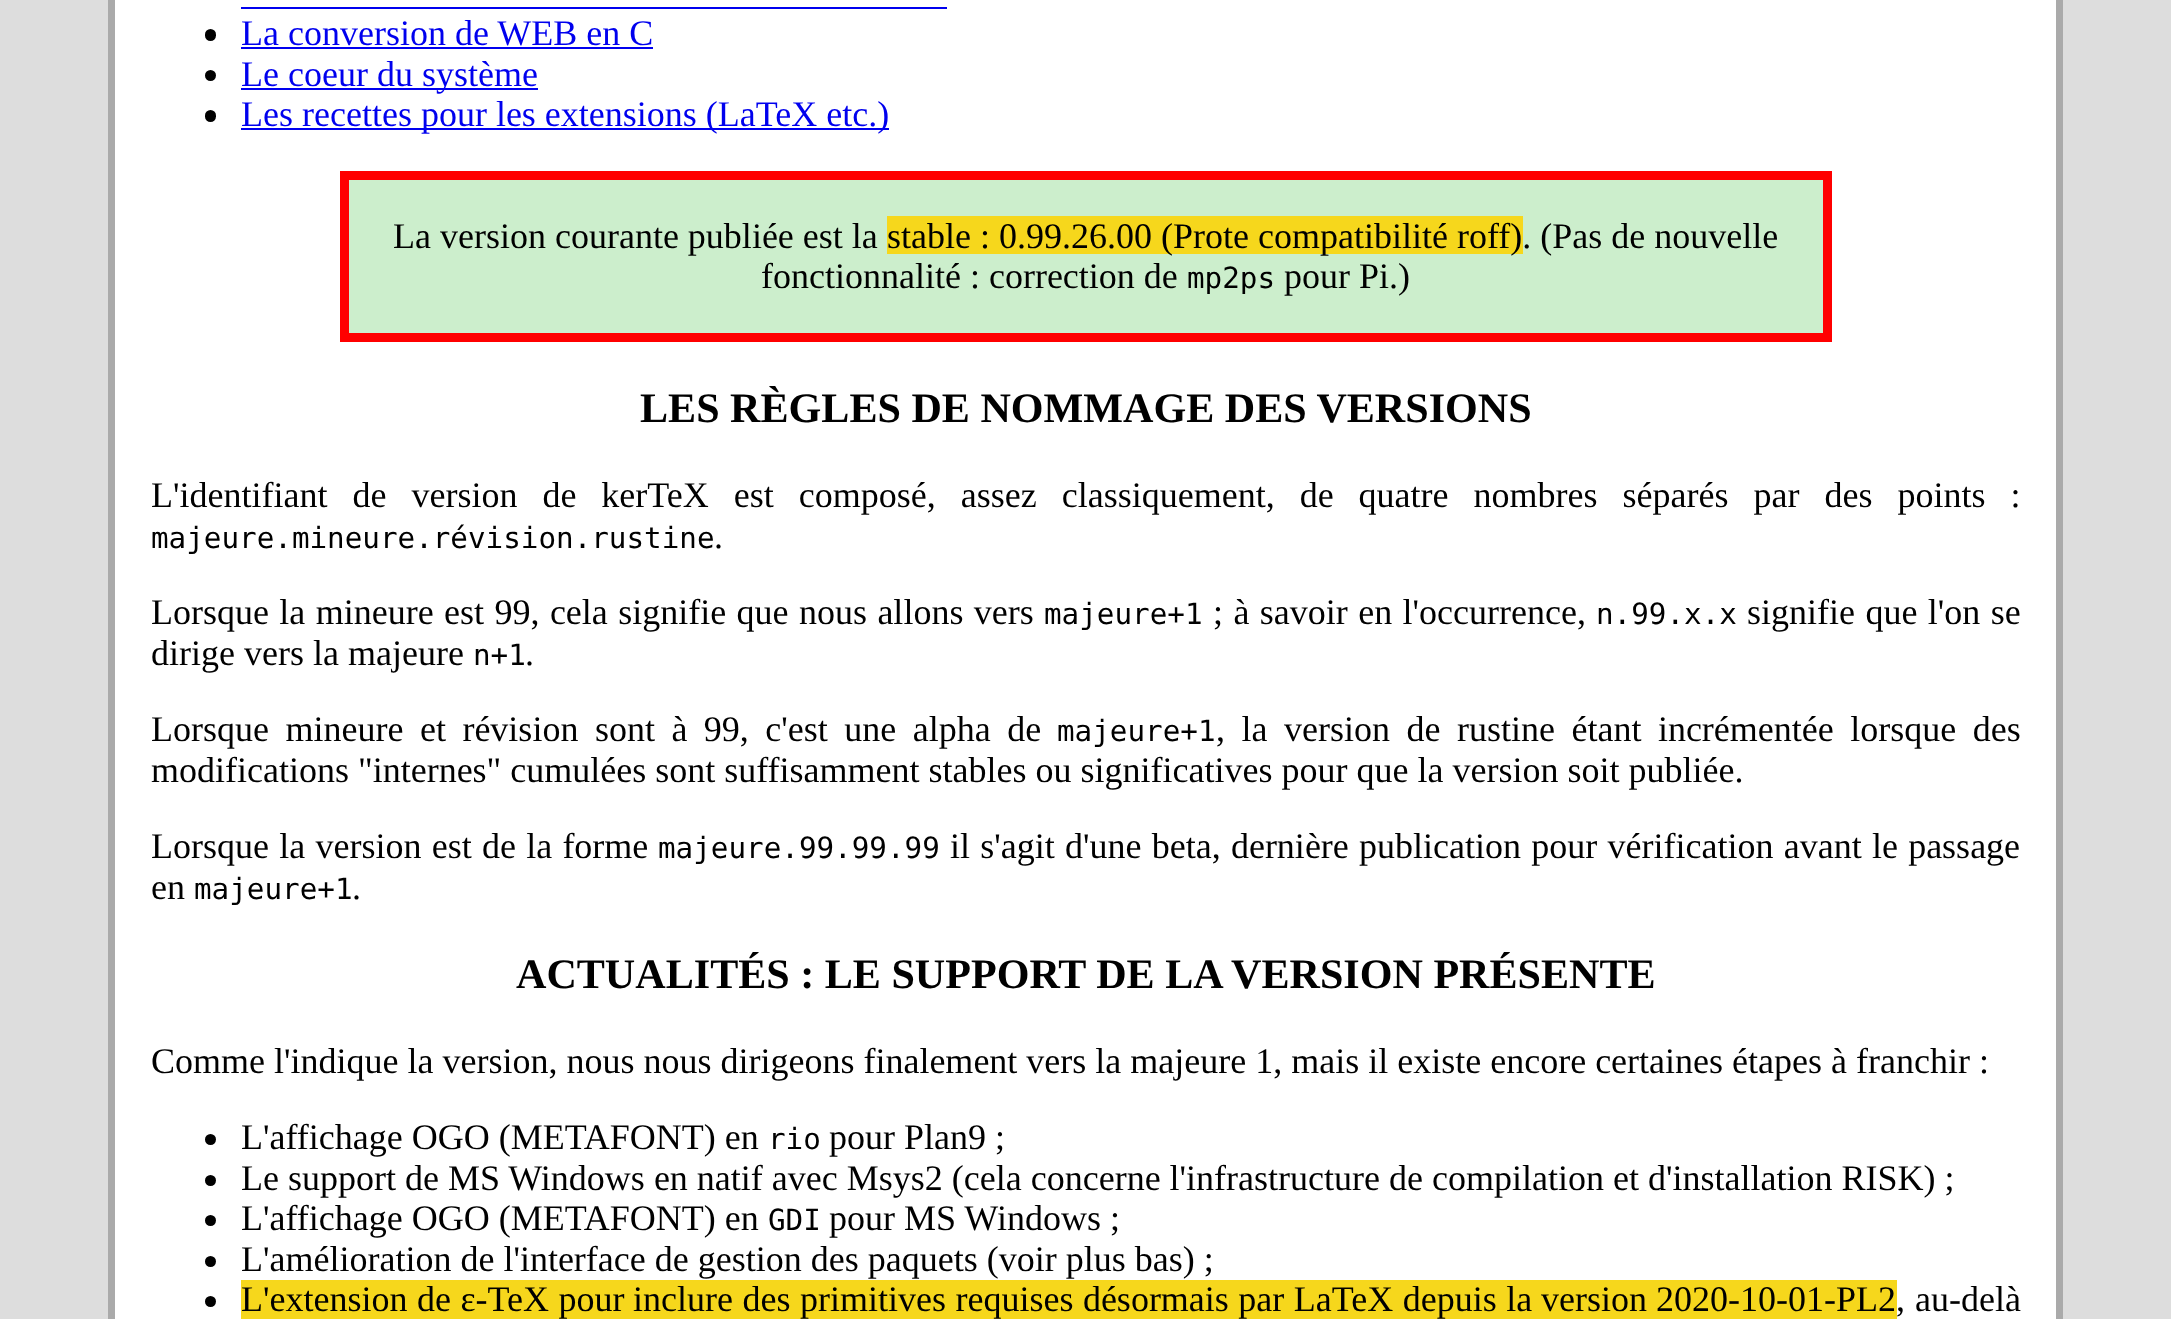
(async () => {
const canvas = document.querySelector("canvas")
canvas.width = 2171
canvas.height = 1319
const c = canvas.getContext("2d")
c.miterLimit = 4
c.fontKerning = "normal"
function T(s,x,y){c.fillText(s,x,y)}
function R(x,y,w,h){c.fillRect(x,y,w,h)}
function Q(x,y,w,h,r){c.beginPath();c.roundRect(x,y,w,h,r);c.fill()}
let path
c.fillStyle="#ddd"
R(0,0,2171,1319)
c.fillStyle="#fff"
R(115,0,1941,1319)
c.fillStyle="#aaa"
path = new Path2D("M2063-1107v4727l-7-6v-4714z")
c.fill(path)
path = new Path2D("M108 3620v-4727l7 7v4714z")
c.fill(path)
c.fillStyle="#00e"
R(241,7,706,2)
c.fillStyle="#000"
Q(205,29,11,12,5.5)
c.font="36px Liberation Serif"
c.fillStyle="#00e"
T("La conversion de WEB en C",241,45)
R(241,47,412,2)
c.fillStyle="#000"
c.beginPath()
c.arc(210.5,75.5,5.5,0,7)
c.fill()
c.fillStyle="#00e"
R(241,88,297,2)
T("Le coeur du système",241,86)
c.fillStyle="#000"
Q(205,110,11,12,5.5)
c.fillStyle="#00e"
R(241,128,648,2)
T("Les recettes pour les extensions (LaTeX etc.)",241,126)
c.fillStyle="#cec"
c.beginPath()
c.rect(344.5,175.5,1483,162)
c.fill()
c.strokeStyle="#f00"
c.lineWidth=9
c.stroke()
c.fillStyle="#000"
T("La version courante publiée est la",393,248)
c.fillStyle="#f6d71c"
R(887,216,636,38)
c.fillStyle="#000"
T("stable : 0.99.26.00 (Prote compatibilité roff). (Pas de nouvelle",887,248)
T("fonctionnalité : correction de",761,288)
c.font="29.25px DejaVu Sans Mono"
T("mp2ps",1187,288)
c.font="36px Liberation Serif"
T("pour Pi.)",1284,288)
c.font="bold 42.1px Liberation Serif"
T("LES RÈGLES DE NOMMAGE DES VERSIONS",640,422)
c.wordSpacing="16px"
c.font="36px Liberation Serif"
T("L'identifiant de version de kerTeX est composé, assez classiquement, de quatre nombres séparés par des points :",151,507)
c.wordSpacing="0px"
c.font="29.25px DejaVu Sans Mono"
T("majeure.mineure.révision.rustine",151,548)
c.font="36px Liberation Serif"
T(".",714,548)
c.wordSpacing="1.4px"
T("Lorsque la mineure est 99, cela signifie que nous allons vers",151,624)
c.wordSpacing="0px"
c.font="29.25px DejaVu Sans Mono"
T("majeure+1",1044,624)
c.wordSpacing="1.4px"
c.font="36px Liberation Serif"
T("; à savoir en l'occurrence,",1213,624)
c.wordSpacing="0px"
c.font="29.25px DejaVu Sans Mono"
T("n.99.x.x",1596,624)
c.wordSpacing="1.4px"
c.font="36px Liberation Serif"
T("signifie que l'on se",1747,624)
c.wordSpacing="0px"
T("dirige vers la majeure",151,665)
c.font="29.25px DejaVu Sans Mono"
T("n+1",473,665)
c.font="36px Liberation Serif"
T(".",525,665)
c.wordSpacing="7.5px"
T("Lorsque mineure et révision sont à 99, c'est une alpha de",151,741)
c.wordSpacing="0px"
c.font="29.25px DejaVu Sans Mono"
T("majeure+1",1057,741)
c.wordSpacing="7.5px"
c.font="36px Liberation Serif"
T(", la version de rustine étant incrémentée lorsque des",1216,741)
c.wordSpacing="0px"
T("modifications \"internes\" cumulées sont suffisamment stables ou significatives pour que la version soit publiée.",151,782)
c.wordSpacing="1.25px"
T("Lorsque la version est de la forme",151,858)
c.wordSpacing="0px"
c.font="29.25px DejaVu Sans Mono"
T("majeure.99.99.99",658,858)
c.wordSpacing="1.25px"
c.font="36px Liberation Serif"
T("il s'agit d'une beta, dernière publication pour vérification avant le passage",950,858)
c.wordSpacing="0px"
T("en",151,899)
c.font="29.25px DejaVu Sans Mono"
T("majeure+1",194,899)
c.font="36px Liberation Serif"
T(".",352,899)
c.font="bold 42.1px Liberation Serif"
T("ACTUALITÉS : LE SUPPORT DE LA VERSION PRÉSENTE",516,988)
c.font="36px Liberation Serif"
T("Comme l'indique la version, nous nous dirigeons finalement vers la majeure 1, mais il existe encore certaines étapes à franchir :",151,1073)
c.beginPath()
c.arc(210.5,1139.5,5.5,0,7)
c.fill()
T("L'affichage OGO (METAFONT) en",241,1149)
c.font="29.25px DejaVu Sans Mono"
T("rio",768,1149)
c.font="36px Liberation Serif"
T("pour Plan9 ;",829,1149)
c.beginPath()
c.arc(210.5,1180.5,5.5,0,7)
c.fill()
T("Le support de MS Windows en natif avec Msys2 (cela concerne l'infrastructure de compilation et d'installation RISK) ;",241,1190)
c.beginPath()
c.arc(210.5,1220.5,5.5,0,7)
c.fill()
T("L'affichage OGO (METAFONT) en",241,1230)
c.font="29.25px DejaVu Sans Mono"
T("GDI",768,1230)
c.font="36px Liberation Serif"
T("pour MS Windows ;",829,1230)
c.beginPath()
c.arc(210.5,1261.5,5.5,0,7)
c.fill()
T("L'amélioration de l'interface de gestion des paquets (voir plus bas) ;",241,1271)
c.beginPath()
c.arc(210.5,1301.5,5.5,0,7)
c.fill()
c.fillStyle="#f6d71c"
R(241,1280,1656,39)
c.wordSpacing="0.5px"
c.fillStyle="#000"
T("L'extension de ε-TeX pour",241,1311)
T("inclure des primitives requises désormais par LaTeX depuis la",633,1311)
c.wordSpacing="0px"
T("version 2020-10-01-PL2",1541,1311)
T("au-delà",1915,1311)
T(",",1896,1311)
})()
